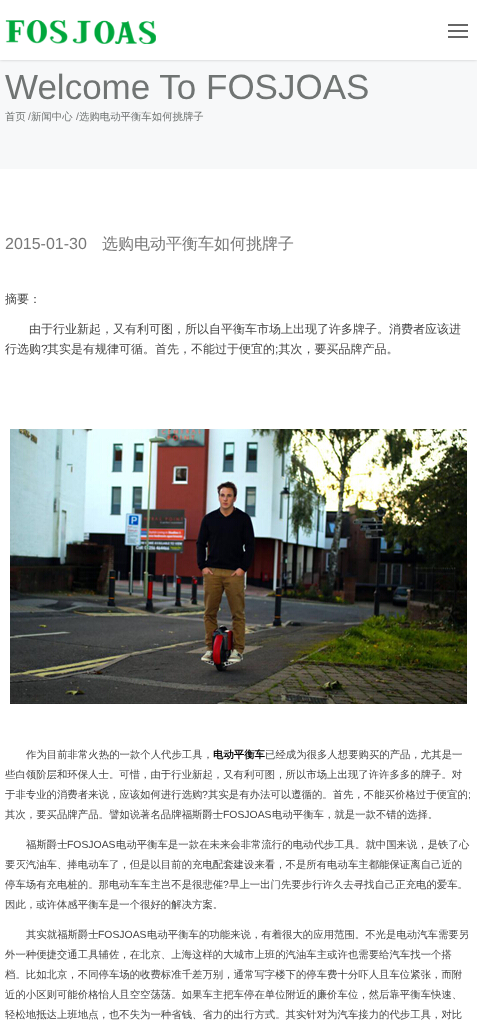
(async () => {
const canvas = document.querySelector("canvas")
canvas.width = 477
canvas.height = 1034
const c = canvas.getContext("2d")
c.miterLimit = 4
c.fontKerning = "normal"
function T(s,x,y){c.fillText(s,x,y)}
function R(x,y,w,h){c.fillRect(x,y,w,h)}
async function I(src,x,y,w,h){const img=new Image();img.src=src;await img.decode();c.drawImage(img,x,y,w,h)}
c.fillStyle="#fff"
R(0,0,477,1034)
c.fillStyle="#f7f8f9"
R(0,60,477,109)
c.fillStyle="#00000033"
c.filter="blur(1.5px)"
c.beginPath()
c.rect(0,0,477,60)
c.fill()
c.filter="none"
c.fillStyle="#fff"
R(0,0,477,60)
await I("1.png",5,20,151,24)
c.fillStyle="#666"
R(448,24,20,2)
R(448,30,20,2)
R(448,36,20,2)
c.font="35px Liberation Sans"
c.fillStyle="#707473"
T("Welcome To FOSJOAS",5,99)
c.font="500 10.4px WenQuanYi Zen Hei"
T("首页",5,120)
c.font="10.4px Liberation Sans"
c.fillStyle="#777"
T("/",28,120)
c.font="500 10.4px WenQuanYi Zen Hei"
c.fillStyle="#707473"
T("新闻中心",31,120)
c.font="10.4px Liberation Sans"
c.fillStyle="#777"
T("/",76,120)
c.font="500 10.4px WenQuanYi Zen Hei"
c.fillStyle="#707473"
T("选购电动平衡车如何挑牌子",79,120)
c.font="16px Liberation Sans"
c.fillStyle="#777"
T("2015-01-30",5,249)
c.font="500 16px WenQuanYi Zen Hei"
T("选购电动平衡车如何挑牌子",102,249)
c.font="500 12px WenQuanYi Zen Hei"
c.fillStyle="#444"
T("摘要：",5,303)
T("由于行业新起，又有利可图，所以自平衡车市场上出现了许多牌子。消费者应该进",29,333)
T("行选购",5,353)
c.font="12px Liberation Sans"
T("?",41,353)
c.font="500 12px WenQuanYi Zen Hei"
T("其实是有规律可循。首先，不能过于便宜的 其次，要买品牌产品。",47,353)
c.font="12px Liberation Sans"
T(";",275,353)
await I("2.png",10,429,457,275)
c.font="500 10.4px WenQuanYi Zen Hei"
T("作为目前非常火热的一款个人代步工具，",26,758)
c.font="bold 10.4px WenQuanYi Zen Hei"
c.fillStyle="#000"
T("电动平衡车",213,758)
c.font="500 10.4px WenQuanYi Zen Hei"
c.fillStyle="#444"
T("已经成为很多人想要购买的产品，尤其是一",265,758)
T("些白领阶层和环保人士。可惜，由于行业新起，又有利可图，所以市场上出现了许许多多的牌子。对",5,778)
T("于非专业的消费者来说，应该如何进行选购",5,798)
c.font="10.4px Liberation Sans"
T("?",202,798)
c.font="500 10.4px WenQuanYi Zen Hei"
T("其实是有办法可以遵循的。首先，不能买价格过于便宜的",208,798)
c.font="10.4px Liberation Sans"
T(";",468,798)
c.font="500 10.4px WenQuanYi Zen Hei"
T("其次，要买品牌产品。譬如说著名品牌福斯爵士",5,818)
c.font="10.4px Liberation Sans"
T("FOSJOAS",223,818)
c.font="500 10.4px WenQuanYi Zen Hei"
T("电动平衡车，就是一款不错的选择。",272,818)
T("福斯爵士",26,848)
c.font="10.4px Liberation Sans"
T("FOSJOAS",67,848)
c.font="500 10.4px WenQuanYi Zen Hei"
T("电动平衡车是一款在未来会非常流行的电动代步工具。就中国来说，是铁了心",116,848)
T("要灭汽油车、捧电动车了，但是以目前的充电配套建设来看，不是所有电动车主都能保证离自己近的",5,868)
T("停车场有充电桩的。那电动车车主岂不是很悲催",5,888)
c.font="10.4px Liberation Sans"
T("?",223,888)
c.font="500 10.4px WenQuanYi Zen Hei"
T("早上一出门先要步行许久去寻找自己正充电的爱车。",229,888)
T("因此，或许体感平衡车是一个很好的解决方案。",5,908)
T("其实就福斯爵士",26,938)
c.font="10.4px Liberation Sans"
T("FOSJOAS",98,938)
c.font="500 10.4px WenQuanYi Zen Hei"
T("电动平衡车的功能来说，有着很大的应用范围。不光是电动汽车需要另",147,938)
T("外一种便捷交通工具辅佐，在北京、上海这样的大城市上班的汽油车主或许也需要给汽车找一个搭",5,958)
T("档。比如北京，不同停车场的收费标准千差万别，通常写字楼下的停车费十分吓人且车位紧张，而附",5,978)
T("近的小区则可能价格怡人且空空荡荡。如果车主把车停在单位附近的廉价车位，然后靠平衡车快速、",5,998)
T("轻松地抵达上班地点，也不失为一种省钱、省力的出行方式。其实针对为汽车接力的代步工具，对比",5,1018)
})()
